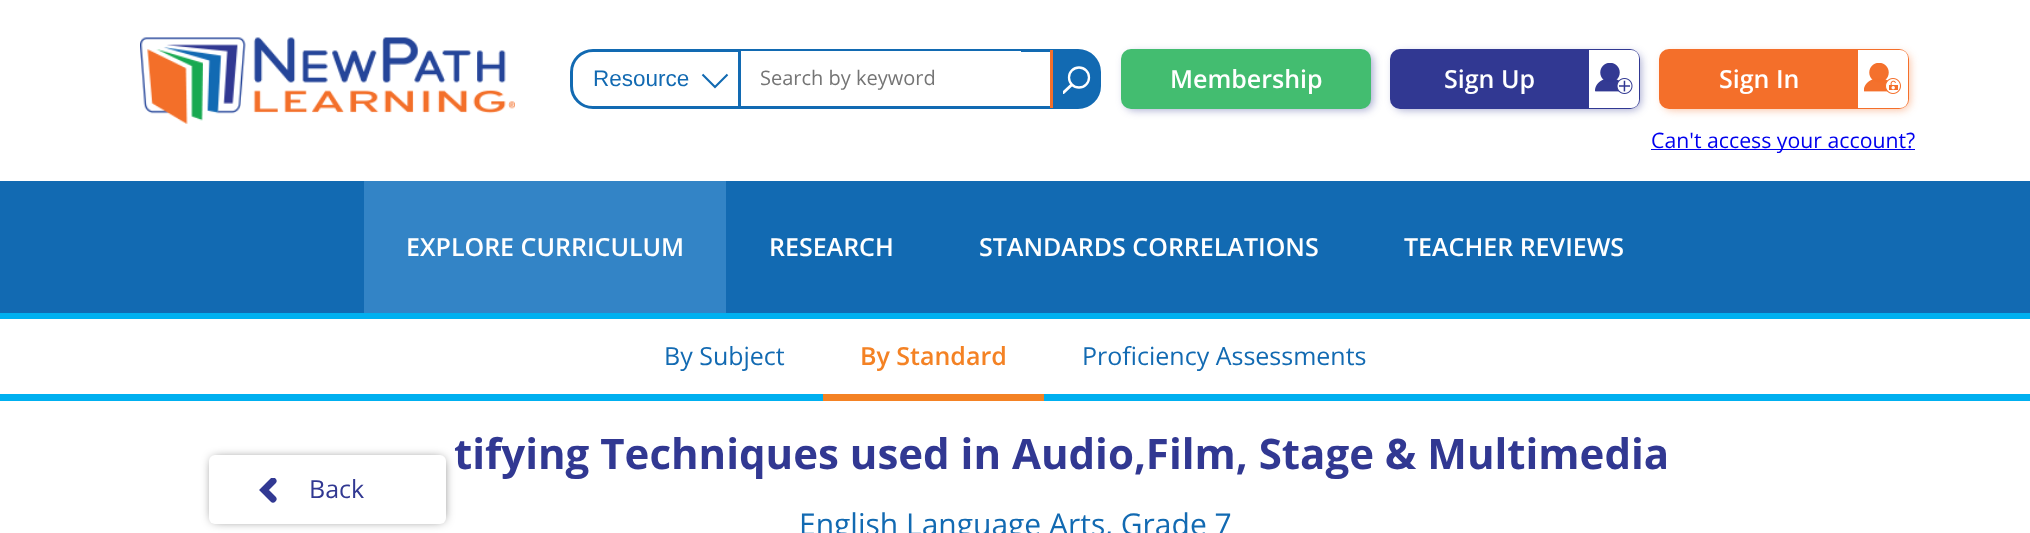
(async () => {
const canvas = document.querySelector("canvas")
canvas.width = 2030
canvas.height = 533
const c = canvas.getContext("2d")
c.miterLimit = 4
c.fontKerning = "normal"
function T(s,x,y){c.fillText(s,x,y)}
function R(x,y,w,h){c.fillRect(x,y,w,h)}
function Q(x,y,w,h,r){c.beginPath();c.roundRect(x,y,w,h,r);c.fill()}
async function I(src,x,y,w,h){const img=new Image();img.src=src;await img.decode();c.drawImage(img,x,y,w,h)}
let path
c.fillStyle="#fff"
R(0,0,2030,533)
await I("1.png",140,37,375,87)
c.beginPath()
c.roundRect(571.5,50.5,528,57,21.5)
c.strokeStyle="#126ab2"
c.lineWidth=3
c.stroke()
c.fillStyle="#126ab2"
R(738,51,3,55)
c.font="22.5px Liberation Sans"
T("Resource",593,86)
path = new Path2D("M702.5 74.5l12.5 12.5l12.5-12.5")
c.lineWidth=2.1
c.stroke(path)
c.fillStyle="#fff"
R(741,51,280,1)
c.font="20px Open Sans"
c.fillStyle="#757575"
T("Search by keyword",760,85)
c.fillStyle="#126ab2"
c.beginPath()
c.roundRect(1050,50,50,58,[0,23,23,0])
c.fill()
c.beginPath()
c.arc(1079,77.5,10,0,7)
c.strokeStyle="#fff"
c.lineWidth=2.3
c.stroke()
c.save()
c.beginPath()
c.rect(1063,66,27,28)
c.clip()
path = new Path2D("M1071.5 85l-8 7.5")
c.lineWidth=2.9
c.lineCap="round"
c.stroke(path)
c.restore()
c.fillStyle="#f46f2a"
R(1050,50,3,58)
c.fillStyle="#31389270"
c.filter="blur(4px)"
c.beginPath()
c.roundRect(1125,53,248,57,9)
c.fill()
c.filter="none"
c.fillStyle="#43bd70"
Q(1121,49,250,60,10)
c.font="600 25px Open Sans"
c.fillStyle="#fff"
T("Membership",1170,88)
c.fillStyle="#31389270"
c.filter="blur(4px)"
c.beginPath()
c.roundRect(1394,53,247,57,9)
c.fill()
c.filter="none"
c.fillStyle="#313892"
Q(1390,49,250,60,10)
c.fillStyle="#fff"
T("Sign Up",1444,88)
c.beginPath()
c.roundRect(1589,50,50,58,[0,8,8,0])
c.fill()
await I("2.png",1595,63,38,31)
c.fillStyle="#f46f2a70"
c.filter="blur(4px)"
c.beginPath()
c.roundRect(1663,53,247,57,9)
c.fill()
c.filter="none"
c.fillStyle="#f46f2a"
Q(1659,49,250,60,10)
c.fillStyle="#fff"
T("Sign In",1719,88)
c.beginPath()
c.roundRect(1858,50,50,58,[0,8,8,0])
c.fill()
await I("3.png",1864,63,37,31)
c.fillStyle="#00e"
R(1651,149,264,1)
c.font="21.25px Open Sans"
T("Can't access your account?",1651,148)
c.fillStyle="#126ab2"
R(0,181,2030,132)
c.fillStyle="#3384c6"
R(364,181,362,132)
c.font="600 25px Open Sans"
c.fillStyle="#fff"
T("EXPLORE CURRICULUM",406,256)
T("RESEARCH",769,256)
T("STANDARDS CORRELATIONS",979,256)
T("TEACHER REVIEWS",1404,256)
c.fillStyle="#00b0f0"
R(0,313,2030,6)
R(0,394,2030,7)
c.font="25px Open Sans"
c.fillStyle="#126ab2"
T("By Subject",664,365)
c.fillStyle="#f48224"
R(823,394,221,7)
c.font="600 25px Open Sans"
T("By Standard",860,365)
c.font="25px Open Sans"
c.fillStyle="#126ab2"
T("Proficiency Assessments",1082,365)
c.font="bold 42px Open Sans"
c.fillStyle="#313892"
T("tifying Techniques used in Audio,Film, Stage & Multimedia",454,469)
c.fillStyle="#000000b3"
c.filter="blur(5.5px)"
c.beginPath()
c.roundRect(213,459,230,61,2.5)
c.fill()
c.filter="none"
c.fillStyle="#fff"
Q(209,455,237,69,6)
c.save()
c.beginPath()
c.rect(259,478,19,25)
c.clip()
path = new Path2D("M273 481l-9 9l9 9")
c.strokeStyle="#323993"
c.lineWidth=7
c.lineCap="round"
c.stroke(path)
c.restore()
c.font="25px Open Sans"
c.fillStyle="#313892"
T("Back",309,498)
c.font="30px Open Sans"
c.fillStyle="#126ab2"
T("English Language Arts, Grade 7",799,535)
})()
